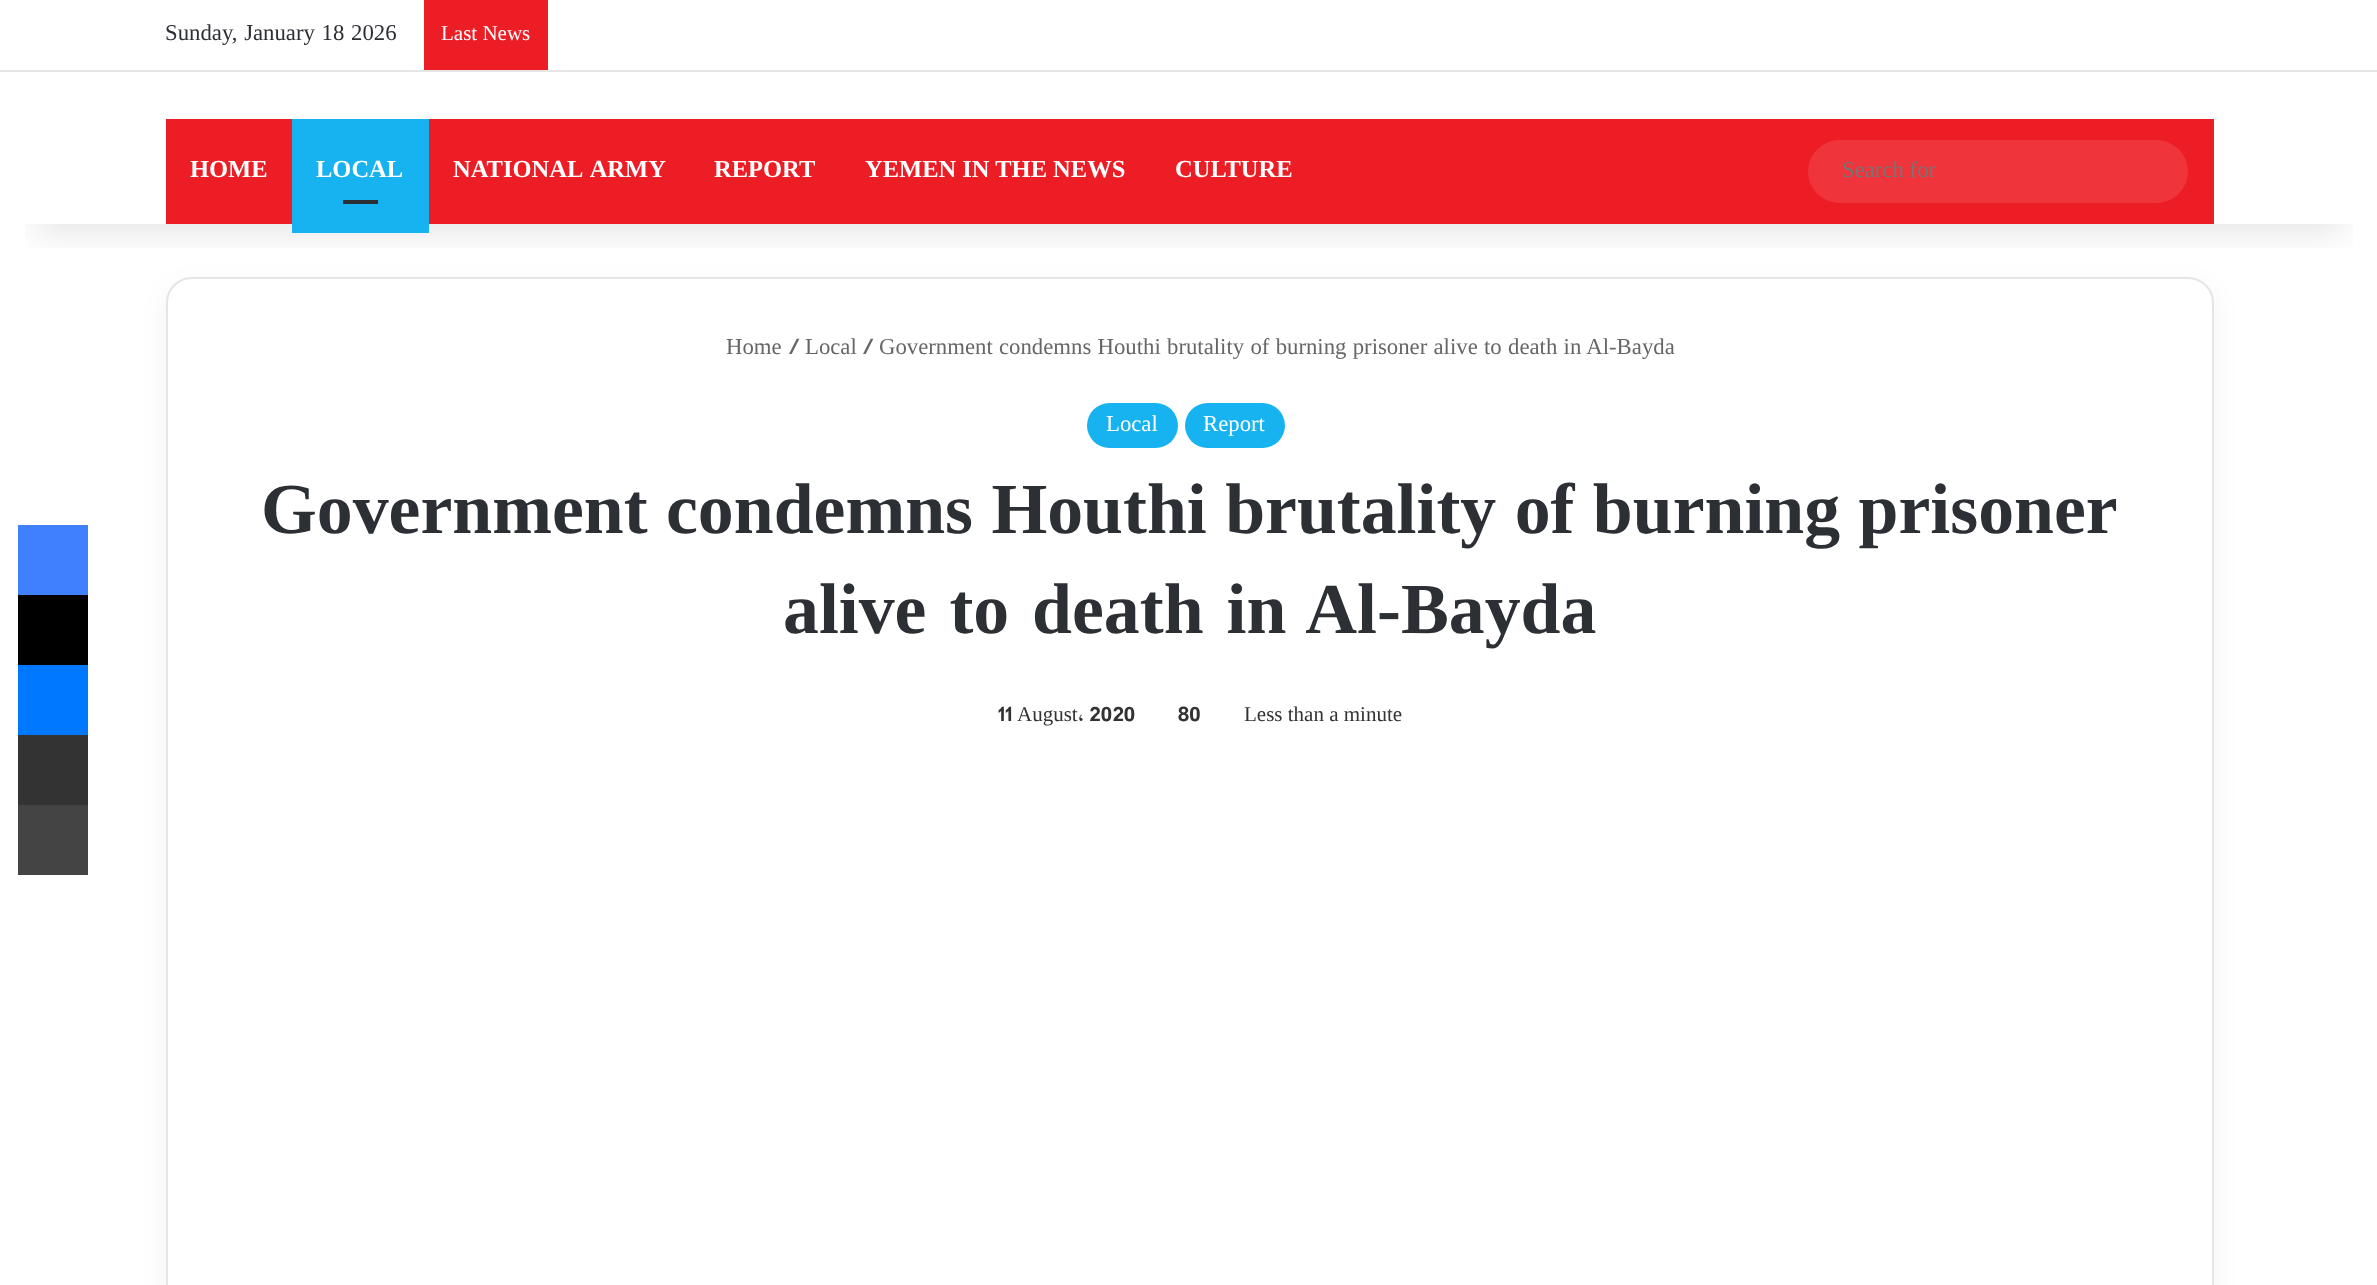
(async () => {
const canvas = document.querySelector("canvas")
canvas.width = 2377
canvas.height = 1285
const c = canvas.getContext("2d")
c.miterLimit = 4
c.fontKerning = "normal"
function T(s,x,y){c.fillText(s,x,y)}
function R(x,y,w,h){c.fillRect(x,y,w,h)}
function Q(x,y,w,h,r){c.beginPath();c.roundRect(x,y,w,h,r);c.fill()}
c.fillStyle="#fff"
R(0,0,2377,1285)
c.fillStyle="#0000000d"
c.filter="blur(13px)"
c.beginPath()
c.roundRect(166,285,2048,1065,26)
c.fill()
c.filter="none"
c.fillStyle="#fff"
c.beginPath()
c.roundRect(167,278,2046,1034,25)
c.fill()
c.strokeStyle="#e5e5e5"
c.lineWidth=2
c.stroke()
c.save()
c.beginPath()
c.rect(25,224,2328,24)
c.clip()
c.fillStyle="#0000001a"
c.filter="blur(17.5px)"
c.beginPath()
c.rect(35,79,2308,154)
c.fill()
c.filter="none"
c.restore()
c.fillStyle="#e6e6e6"
R(0,70,2377,2)
c.wordSpacing="1px"
c.font="22.75px Liberation Serif"
c.fillStyle="#2c2f34"
T("Sunday, January 18 2026",165,40)
c.fillStyle="#ed1d25"
R(424,0,124,70)
c.wordSpacing="0px"
c.font="21px Liberation Serif"
c.fillStyle="#fff"
T("Last News",441,40)
c.fillStyle="#ed1d25"
R(166,119,2048,105)
c.font="bold 24.5px Liberation Serif"
c.fillStyle="#fff"
T("HOME",190,177)
c.fillStyle="#17b3f1"
R(292,119,137,114)
c.fillStyle="#fff"
T("LOCAL",316,177)
c.fillStyle="#2c2f34"
R(343,200,35,4)
c.wordSpacing="3px"
c.fillStyle="#fff"
T("NATIONAL ARMY",453,177)
c.wordSpacing="0px"
T("REPORT",714,177)
T("YEMEN IN THE NEWS",865,177)
T("CULTURE",1175,177)
c.fillStyle="#ef343b"
Q(1808,140,380,63,31.5)
c.font="22.75px Liberation Serif"
c.fillStyle="#757575"
T("Search for",1842,177)
c.fillStyle="#4080ff"
R(18,525,70,70)
c.fillStyle="#000"
R(18,595,70,70)
c.fillStyle="#0078ff"
R(18,665,70,70)
c.fillStyle="#333"
R(18,735,70,70)
c.fillStyle="#444"
R(18,805,70,70)
c.fillStyle="#666"
T("Home",726,354)
c.font="bold 22.75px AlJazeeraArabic"
T("/",788,354)
c.font="22.75px Liberation Serif"
T("Local",805,354)
c.font="bold 22.75px AlJazeeraArabic"
T("/",862,354)
c.wordSpacing="0.6px"
c.font="22.75px Liberation Serif"
T("Government condemns Houthi brutality of burning prisoner alive to death in Al-Bayda",879,354)
c.fillStyle="#17b3f1"
Q(1087,403,91,45,22.5)
c.wordSpacing="0px"
c.fillStyle="#fff"
T("Local",1106,431)
c.fillStyle="#17b3f1"
Q(1185,403,100,45,22.5)
c.fillStyle="#fff"
T("Report",1203,431)
c.wordSpacing="0.5px"
c.font="bold 71.75px Liberation Serif"
c.fillStyle="#2c2f34"
T("Government condemns Houthi brutality of burning prisoner",261,533)
c.wordSpacing="5px"
T("alive to death in Al-Bayda",783,633)
c.wordSpacing="0px"
c.font="bold 21px AlJazeeraArabic"
c.fillStyle="#333"
T("11",998,721)
c.font="21px Liberation Serif"
T("August",1017,721)
c.font="bold 21px AlJazeeraArabic"
T("، 2020",1078,721)
T("80",1178,721)
c.font="21px Liberation Serif"
T("Less than a minute",1244,721)
})()
